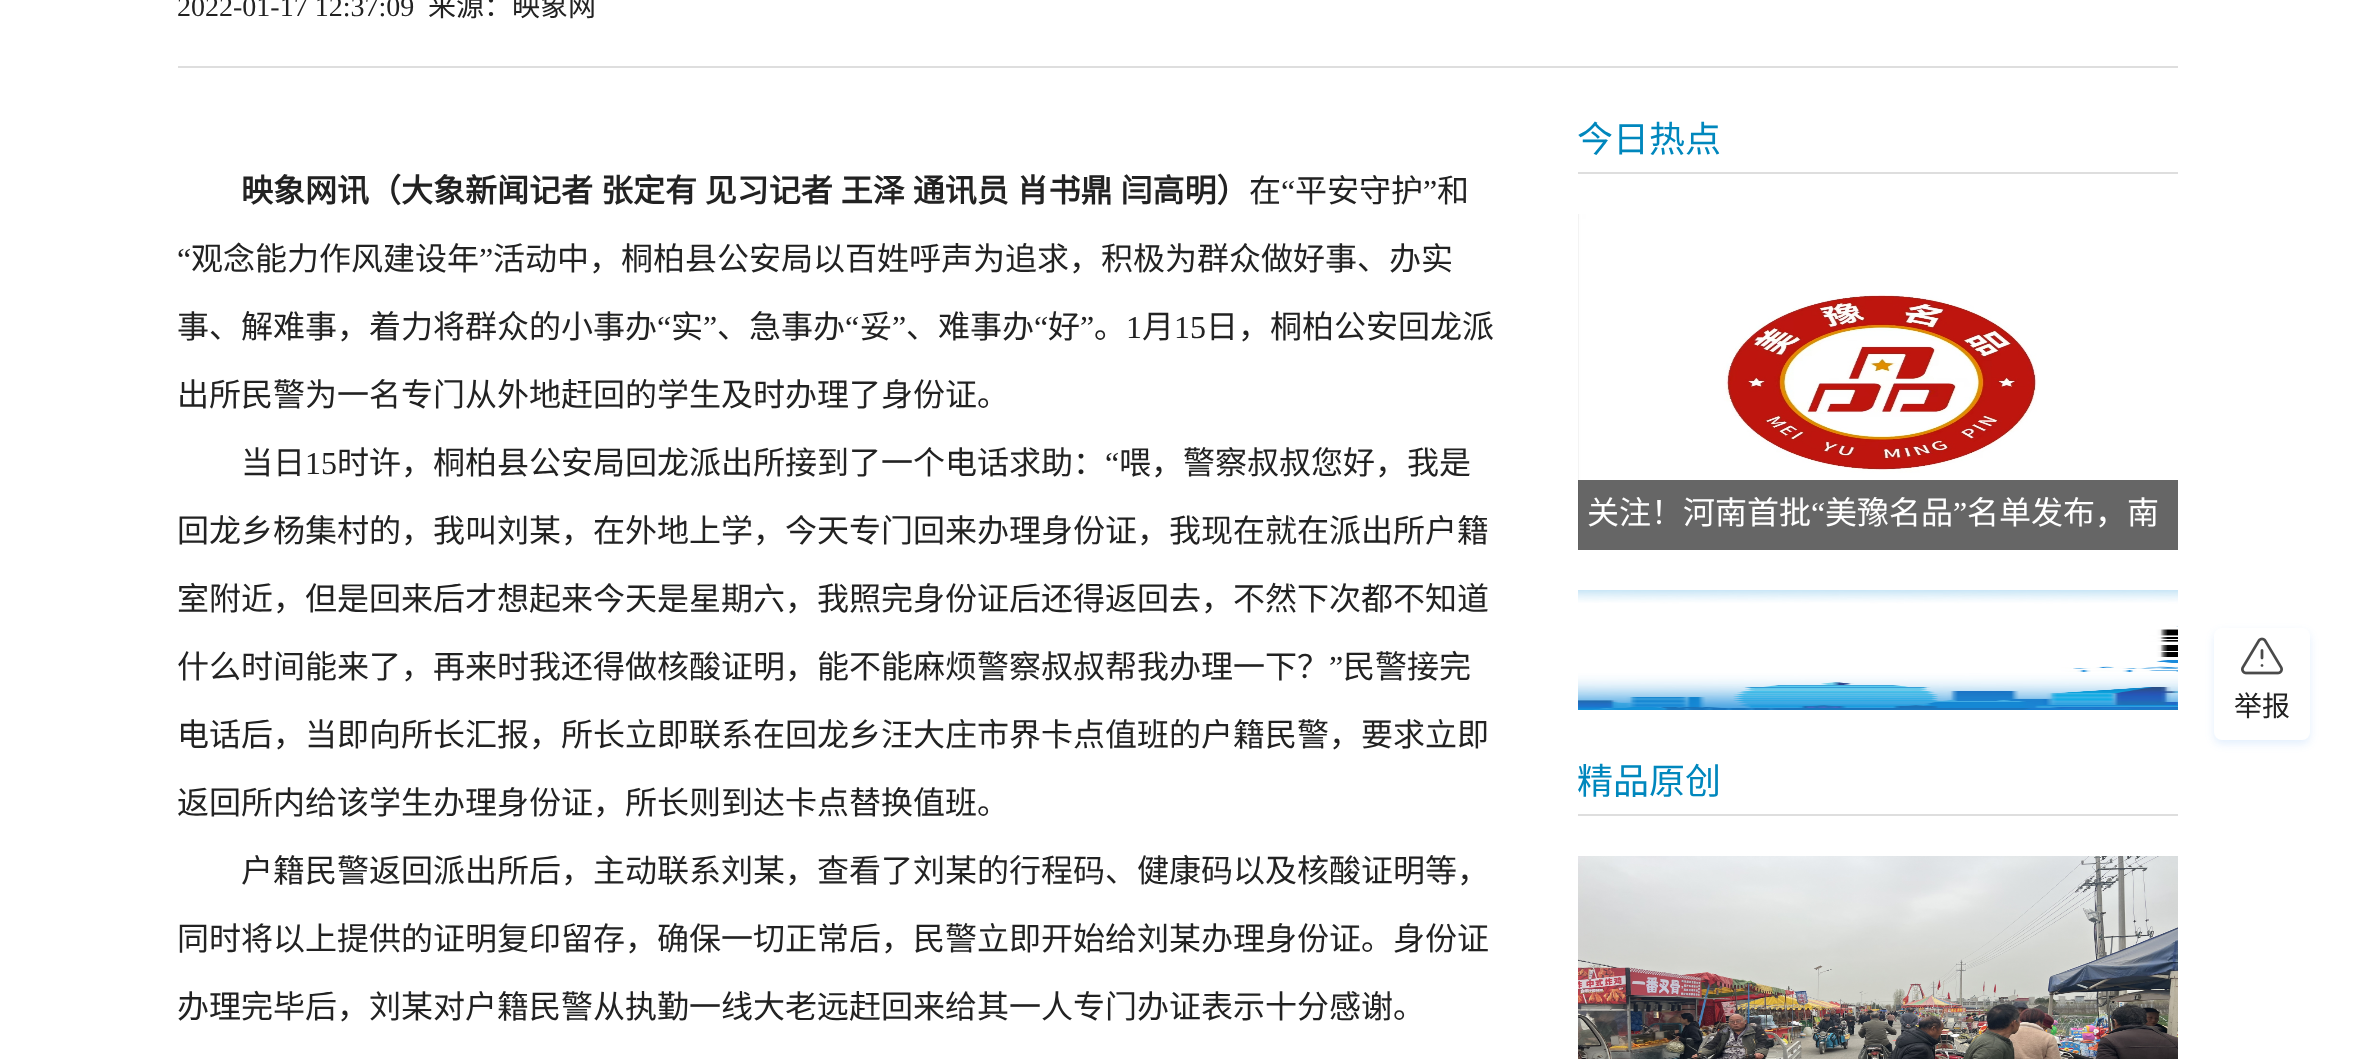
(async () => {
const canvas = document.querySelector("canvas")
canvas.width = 2354
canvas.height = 1059
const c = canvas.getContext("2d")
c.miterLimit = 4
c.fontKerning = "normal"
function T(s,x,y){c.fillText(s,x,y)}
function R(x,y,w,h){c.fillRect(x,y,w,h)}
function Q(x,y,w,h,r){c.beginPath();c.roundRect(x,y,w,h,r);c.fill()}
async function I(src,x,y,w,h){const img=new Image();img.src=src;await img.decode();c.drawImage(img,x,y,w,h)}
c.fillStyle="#fff"
R(0,0,2354,1059)
c.fillStyle="#dedede"
R(178,66,2000,2)
c.font="28px Liberation Serif"
c.fillStyle="#222"
T("2022-01-17 12:37:09",177,16)
c.font="28px Noto Sans CJK SC"
T("来源：映象网",428,16)
c.wordSpacing="0.75px"
c.font="bold 32px Noto Sans CJK SC"
T("映象网讯（大象新闻记者 张定有 见习记者 王泽 通讯员 肖书鼎 闫高明）",241,202)
c.wordSpacing="0px"
c.font="32px Noto Sans CJK SC"
T("在",1249,202)
c.font="32px Liberation Serif"
T("“",1281,202)
c.font="32px Noto Sans CJK SC"
T("平安守护",1295,202)
c.font="32px Liberation Serif"
T("”",1423,202)
c.font="32px Noto Sans CJK SC"
T("和",1437,202)
c.font="32px Liberation Serif"
T("“",177,270)
c.font="32px Noto Sans CJK SC"
T("观念能力作风建设年",191,270)
c.font="32px Liberation Serif"
T("”",479,270)
c.font="32px Noto Sans CJK SC"
T("活动中，桐柏县公安局以百姓呼声为追求，积极为群众做好事、办实",493,270)
T("事、解难事，着力将群众的小事办",177,338)
c.font="32px Liberation Serif"
T("“",657,338)
c.font="32px Noto Sans CJK SC"
T("实",671,338)
c.font="32px Liberation Serif"
T("”",703,338)
c.font="32px Noto Sans CJK SC"
T("、急事办",717,338)
c.font="32px Liberation Serif"
T("“",845,338)
c.font="32px Noto Sans CJK SC"
T("妥",860,338)
c.font="32px Liberation Serif"
T("”",892,338)
c.font="32px Noto Sans CJK SC"
T("、难事办",906,338)
c.font="32px Liberation Serif"
T("“",1034,338)
c.font="32px Noto Sans CJK SC"
T("好",1048,338)
c.font="32px Liberation Serif"
T("”",1080,338)
c.font="32px Noto Sans CJK SC"
T("。",1094,338)
c.font="32px Liberation Serif"
T("1",1126,338)
c.font="32px Noto Sans CJK SC"
T("月",1142,338)
c.font="32px Liberation Serif"
T("15",1174,338)
c.font="32px Noto Sans CJK SC"
T("日，桐柏公安回龙派",1206,338)
T("出所民警为一名专门从外地赶回的学生及时办理了身份证。",177,406)
T("当日",241,474)
c.font="32px Liberation Serif"
T("15",305,474)
c.font="32px Noto Sans CJK SC"
T("时许，桐柏县公安局回龙派出所接到了一个电话求助：",337,474)
c.font="32px Liberation Serif"
T("“",1105,474)
c.font="32px Noto Sans CJK SC"
T("喂，警察叔叔您好，我是",1119,474)
T("回龙乡杨集村的，我叫刘某，在外地上学，今天专门回来办理身份证，我现在就在派出所户籍",177,542)
T("室附近，但是回来后才想起来今天是星期六，我照完身份证后还得返回去，不然下次都不知道",177,610)
T("什么时间能来了，再来时我还得做核酸证明，能不能麻烦警察叔叔帮我办理一下？",177,678)
c.font="32px Liberation Serif"
T("”",1329,678)
c.font="32px Noto Sans CJK SC"
T("民警接完",1343,678)
T("电话后，当即向所长汇报，所长立即联系在回龙乡汪大庄市界卡点值班的户籍民警，要求立即",177,746)
T("返回所内给该学生办理身份证，所长则到达卡点替换值班。",177,814)
T("户籍民警返回派出所后，主动联系刘某，查看了刘某的行程码、健康码以及核酸证明等，",241,882)
T("同时将以上提供的证明复印留存，确保一切正常后，民警立即开始给刘某办理身份证。身份证",177,950)
T("办理完毕后，刘某对户籍民警从执勤一线大老远赶回来给其一人专门办证表示十分感谢。",177,1018)
c.fillStyle="#dedede"
R(1578,172,600,2)
c.font="36px Noto Sans CJK SC"
c.fillStyle="#0087bd"
T("今日热点",1577,152)
await I("1.png",1578,214,459,336)
c.fillStyle="#00000099"
R(1578,480,600,70)
c.font="32px Noto Sans CJK SC"
c.fillStyle="#fff"
T("关注！河南首批",1587,524)
c.font="32px Liberation Serif"
T("“",1811,524)
c.font="32px Noto Sans CJK SC"
T("美豫名品",1825,524)
c.font="32px Liberation Serif"
T("”",1953,524)
c.font="32px Noto Sans CJK SC"
T("名单发布，南",1967,524)
await I("2.png",1578,590,600,120)
c.fillStyle="#dedede"
R(1578,814,600,2)
c.font="36px Noto Sans CJK SC"
c.fillStyle="#0087bd"
T("精品原创",1577,794)
await I("3.png",1578,856,600,203)
c.fillStyle="#1c7aef1f"
c.filter="blur(4px)"
c.beginPath()
c.roundRect(2214,632,96,112,8)
c.fill()
c.filter="none"
c.fillStyle="#fff"
Q(2214,628,96,112,8)
await I("4.png",2241,637,42,38)
c.font="28px Noto Sans CJK SC"
c.fillStyle="#222"
T("举报",2234,716)
})()
